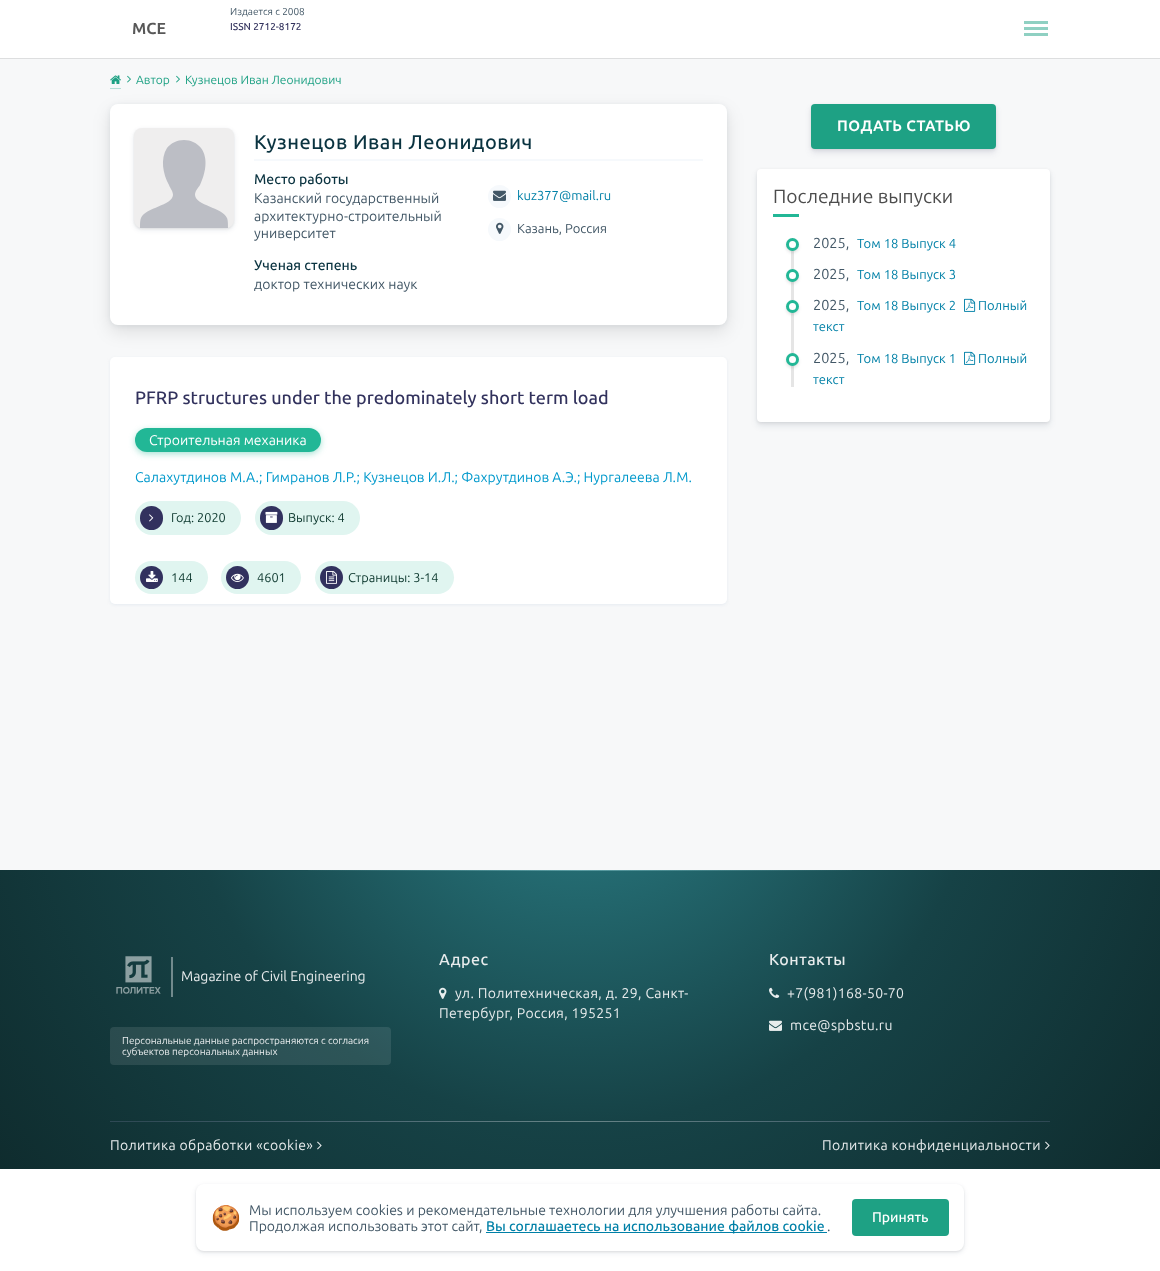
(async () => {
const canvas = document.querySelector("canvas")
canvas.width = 1160
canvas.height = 1271
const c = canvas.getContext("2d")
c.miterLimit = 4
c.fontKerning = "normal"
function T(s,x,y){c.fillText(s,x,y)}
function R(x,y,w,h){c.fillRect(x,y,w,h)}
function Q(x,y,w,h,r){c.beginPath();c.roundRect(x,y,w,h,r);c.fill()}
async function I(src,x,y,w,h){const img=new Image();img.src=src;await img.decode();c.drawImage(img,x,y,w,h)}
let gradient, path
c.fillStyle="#fff"
R(0,0,1160,1271)
c.fillStyle="#f7f8f9"
R(0,58,1160,812)
c.save()
c.beginPath()
c.rect(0,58,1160,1)
c.clip()
c.fillStyle="#0000001a"
c.filter="blur(0.5px)"
c.beginPath()
c.rect(0,1,1160,58)
c.fill()
c.filter="none"
c.restore()
c.font="bold 16px Ubuntu"
c.fillStyle="#585858"
T("MCE",132,34)
c.font="10px Ubuntu"
c.fillStyle="#425766"
T("Издается с 2008",230,15)
c.font="500 10px Ubuntu"
c.fillStyle="#32325d"
T("ISSN 2712-8172",230,30)
c.fillStyle="#8fd0c2"
R(1024,27,24,3)
R(1024,21,24,3)
R(1024,33,24,3)
c.fillStyle="#b6ded6"
R(110,88,11,1)
await I("1.png",110,75,11,9)
await I("2.png",127,75,4,8)
c.font="12px Ubuntu"
c.fillStyle="#1ea184"
T("Автор",136,84)
await I("2.png",176,75,4,8)
T("Кузнецов Иван Леонидович",185,84)
c.fillStyle="#0000001a"
c.filter="blur(8.5px)"
c.beginPath()
c.roundRect(110,111,617,221,8)
c.fill()
c.filter="none"
c.fillStyle="#0a254012"
c.filter="blur(2.5px)"
c.beginPath()
c.roundRect(110,105,617,221,8)
c.fill()
c.filter="none"
c.fillStyle="#fff"
Q(110,104,617,221,8)
c.fillStyle="#00000012"
c.filter="blur(1px)"
c.beginPath()
c.roundRect(134,129,100,100,8)
c.fill()
c.filter="none"
c.fillStyle="#0a254017"
c.filter="blur(2.5px)"
c.beginPath()
c.roundRect(134,130,100,100,8)
c.fill()
c.filter="none"
c.fillStyle="#efeeee"
Q(134,128,100,100,8)
c.fillStyle="#bcbec5"
path = new Path2D("M142 228h86c0-3 0-8-1-10c-5-11-31-12-32-23c0-4 3-7 5-10c5-11 9-26 1-37c-4-5-10-8-17-8c-7 0-13 3-17 8c-7 11-4 26 2 37c1 3 4 6 4 10c-1 11-27 12-32 23c-1 2-1 7-1 10z")
c.fill(path)
c.fillStyle="#f6f9fc"
R(254,159,449,2)
c.letterSpacing="0.5px"
c.font="500 20px Ubuntu"
c.fillStyle="#0a3340"
T("Кузнецов Иван Леонидович",254,149)
c.letterSpacing="0px"
c.font="500 14px Ubuntu"
T("Место работы",254,184)
c.font="14px Ubuntu"
c.fillStyle="#425766"
T("Казанский государственный",254,203)
T("архитектурно-строительный",254,221)
T("университет",254,238)
c.font="500 14px Ubuntu"
c.fillStyle="#0a3340"
T("Ученая степень",254,270)
c.font="14px Ubuntu"
c.fillStyle="#425766"
T("доктор технических наук",254,289)
c.fillStyle="#f6f9fc"
c.beginPath()
c.arc(499.5,196.5,11.5,0,7)
c.fill()
await I("3.png",493,190,13,11)
c.font="13px Ubuntu"
c.fillStyle="#0080a7"
T("kuz377@mail.ru",517,200)
c.fillStyle="#f6f9fc"
c.beginPath()
c.arc(499.5,229.5,11.5,0,7)
c.fill()
await I("4.png",496,222,8,12)
c.fillStyle="#425766"
T("Казань, Россия",517,233)
c.fillStyle="#e6ebf1"
c.filter="blur(1.5px)"
c.beginPath()
c.roundRect(110,358,617,247,5)
c.fill()
c.filter="none"
c.fillStyle="#fff"
Q(110,357,617,247,5)
c.font="500 18px Ubuntu"
c.fillStyle="#32325d"
T("PFRP structures under the predominately short term load",135,404)
c.fillStyle="#22b79666"
c.filter="blur(3px)"
c.beginPath()
c.roundRect(135,430,186,24,12)
c.fill()
c.filter="none"
c.fillStyle="#22b796"
Q(135,428,186,24,12)
c.font="14px Ubuntu"
c.fillStyle="#fff"
T("Строительная механика",149,445)
c.fillStyle="#09c"
T("Салахутдинов М.А.; Гимранов Л.Р.; Кузнецов И.Л.; Фахрутдинов А.Э.; Нургалеева Л.М.",135,482)
c.fillStyle="#e0f5f0"
Q(135,501,106,34,17)
c.fillStyle="#32315e"
Q(140,506,23,24,11.5)
await I("5.png",149,514,5,8)
c.font="12.75px Ubuntu"
c.fillStyle="#0a362c"
T("Год: 2020",171,522)
c.fillStyle="#e0f5f0"
Q(255,501,105,34,17)
c.fillStyle="#32315e"
Q(260,506,23,24,11.5)
await I("6.png",265,511,13,12)
c.fillStyle="#0a362c"
T("Выпуск: 4",288,522)
c.fillStyle="#e0f5f0"
Q(135,561,73,33,16.5)
c.fillStyle="#32315e"
c.beginPath()
c.arc(151.5,577.5,11.5,0,7)
c.fill()
await I("7.png",146,571,12,11)
c.fillStyle="#0a362c"
T("144",171,582)
c.fillStyle="#e0f5f0"
Q(221,561,80,33,16.5)
c.fillStyle="#32315e"
c.beginPath()
c.arc(237.5,577.5,11.5,0,7)
c.fill()
await I("8.png",231,573,13,9)
c.fillStyle="#0a362c"
T("4601",257,582)
c.fillStyle="#e0f5f0"
Q(315,561,139,33,16.5)
c.fillStyle="#32315e"
c.beginPath()
c.arc(331.5,577.5,11.5,0,7)
c.fill()
await I("9.png",326,571,11,13)
c.fillStyle="#0a362c"
T("Страницы: 3-14",348,582)
c.fillStyle="#00000014"
c.filter="blur(1.5px)"
c.beginPath()
c.roundRect(811,105,185,45,4)
c.fill()
c.filter="none"
c.fillStyle="#32325d1c"
c.filter="blur(3px)"
c.beginPath()
c.roundRect(811,108,185,45,4)
c.fill()
c.filter="none"
c.fillStyle="#1ea184"
Q(811,104,185,45,4)
c.letterSpacing="0.4px"
c.font="bold 15px Ubuntu"
c.fillStyle="#fff"
T("ПОДАТЬ СТАТЬЮ",837,131)
c.fillStyle="#00000014"
c.filter="blur(1.5px)"
c.beginPath()
c.roundRect(757,170,293,253,4)
c.fill()
c.filter="none"
c.fillStyle="#0a254017"
c.filter="blur(3px)"
c.beginPath()
c.roundRect(757,173,293,253,4)
c.fill()
c.filter="none"
c.fillStyle="#fff"
Q(757,169,293,253,4)
c.letterSpacing="0px"
c.font="19.25px Ubuntu"
c.fillStyle="#4c4c4c"
T("Последние выпуски",773,203)
c.fillStyle="#22b796"
R(773,214,26,3)
c.fillStyle="#e5e5e5"
R(791,250,3,137)
c.fillStyle="#0000001a"
c.filter="blur(1.5px)"
c.beginPath()
c.roundRect(786,240,13,13,6.5)
c.fill()
c.filter="none"
c.fillStyle="#fff"
c.beginPath()
c.arc(792.5,244.5,5,0,7)
c.fill()
c.strokeStyle="#22b796"
c.lineWidth=3
c.stroke()
c.font="14.5px Ubuntu"
c.fillStyle="#425766"
T("2025,",813,248)
c.font="13px Ubuntu"
c.fillStyle="#0080a7"
T("Том 18 Выпуск 4",857,248)
c.fillStyle="#0000001a"
c.filter="blur(1.5px)"
c.beginPath()
c.roundRect(786,271,13,13,6.5)
c.fill()
c.filter="none"
c.fillStyle="#fff"
c.beginPath()
c.arc(792.5,275.5,5,0,7)
c.fill()
c.stroke()
c.font="14.5px Ubuntu"
c.fillStyle="#425766"
T("2025,",813,279)
c.font="13px Ubuntu"
c.fillStyle="#0080a7"
T("Том 18 Выпуск 3",857,279)
c.fillStyle="#0000001a"
c.filter="blur(1.5px)"
c.beginPath()
c.roundRect(786,302,13,13,6.5)
c.fill()
c.filter="none"
c.fillStyle="#fff"
c.beginPath()
c.arc(792.5,306.5,5,0,7)
c.fill()
c.stroke()
c.font="14.5px Ubuntu"
c.fillStyle="#425766"
T("2025,",813,310)
await I("10.png",964,298,12,14)
c.font="13px Ubuntu"
c.fillStyle="#0080a7"
T("Полный",978,310)
T("текст",813,331)
T("Том 18 Выпуск 2",857,310)
c.fillStyle="#0000001a"
c.filter="blur(1.5px)"
c.beginPath()
c.roundRect(786,355,13,13,6.5)
c.fill()
c.filter="none"
c.fillStyle="#fff"
c.beginPath()
c.arc(792.5,359.5,5,0,7)
c.fill()
c.stroke()
c.font="14.5px Ubuntu"
c.fillStyle="#425766"
T("2025,",813,363)
await I("10.png",964,351,12,14)
c.font="13px Ubuntu"
c.fillStyle="#0080a7"
T("Полный",978,363)
T("текст",813,384)
T("Том 18 Выпуск 1",857,363)
gradient = c.createRadialGradient(580,721,0,580,721,733)
gradient.addColorStop(.1,"#28777e")
gradient.addColorStop(.55,"#164246")
gradient.addColorStop(1,"#0f2c2e")
c.fillStyle = gradient
R(0,870,1160,299)
gradient = c.createLinearGradient(6.7,808,1153,933)
gradient.addColorStop(.25,"#c4faff00")
gradient.addColorStop(.5,"#c4faff59")
gradient.addColorStop(.75,"#c4faff00")
c.fillStyle = gradient
R(308,870,544,1)
await I("11.png",116,956,45,38)
c.fillStyle="#728a8d"
R(171,957,2,40)
c.font="14px Ubuntu"
c.fillStyle="#e8eced"
T("Magazine of Civil Engineering",181,981)
c.fillStyle="#ffffff1a"
Q(110,1027,281,38,4)
c.font="10px Ubuntu"
c.fillStyle="#e8eced"
T("Персональные данные распространяются с согласия",122,1044)
T("субъектов персональных данных",122,1055)
c.letterSpacing="0.5px"
c.font="500 16px Ubuntu"
T("Адрес",439,965)
await I("12.png",439,987,8,12)
c.letterSpacing="0.35px"
c.font="14px Ubuntu"
T("ул. Политехническая, д. 29, Санкт-",455,998)
T("Петербург, Россия, 195251",439,1018)
c.letterSpacing="0.5px"
c.font="500 16px Ubuntu"
T("Контакты",769,965)
await I("13.png",769,987,11,11)
c.letterSpacing="0.35px"
c.font="14px Ubuntu"
T("+7(981)168-50-70",787,998)
await I("14.png",769,1020,13,11)
T("mce@spbstu.ru",790,1030)
gradient = c.createLinearGradient(115,1073,1045,1170)
gradient.addColorStop(.03,"#d7c4ff26")
gradient.addColorStop(.5,"#ffffff59")
gradient.addColorStop(.97,"#d7c4ff26")
c.fillStyle = gradient
R(110,1121,940,1)
c.fillStyle="#e8eced"
T("Политика обработки «cookie»",110,1150)
await I("15.png",317,1141,5,9)
T("Политика конфиденциальности",822,1150)
await I("16.png",1045,1141,5,9)
c.fillStyle="#00000012"
c.filter="blur(1px)"
c.beginPath()
c.roundRect(196,1185,768,67,8)
c.fill()
c.filter="none"
c.fillStyle="#0a254017"
c.filter="blur(2.5px)"
c.beginPath()
c.roundRect(196,1186,768,67,8)
c.fill()
c.filter="none"
c.fillStyle="#fff"
Q(196,1184,768,67,8)
c.letterSpacing="0px"
c.font="24px Noto Color Emoji"
c.fillStyle="#425766"
T("🍪",211,1226)
c.font="14px Ubuntu"
T("Мы используем cookies и рекомендательные технологии для улучшения работы сайта.",249,1215)
T("Продолжая использовать этот сайт,",249,1231)
c.fillStyle="#0080a7"
R(486,1232,341,1)
c.font="500 14px Ubuntu"
T("Вы соглашаетесь на использование файлов cookie",486,1231)
c.font="14px Ubuntu"
c.fillStyle="#425766"
T(".",827,1231)
c.fillStyle="#1ea184"
Q(852,1199,97,37,4)
c.font="500 14px Ubuntu"
c.fillStyle="#fff"
T("Принять",872,1222)
})()
